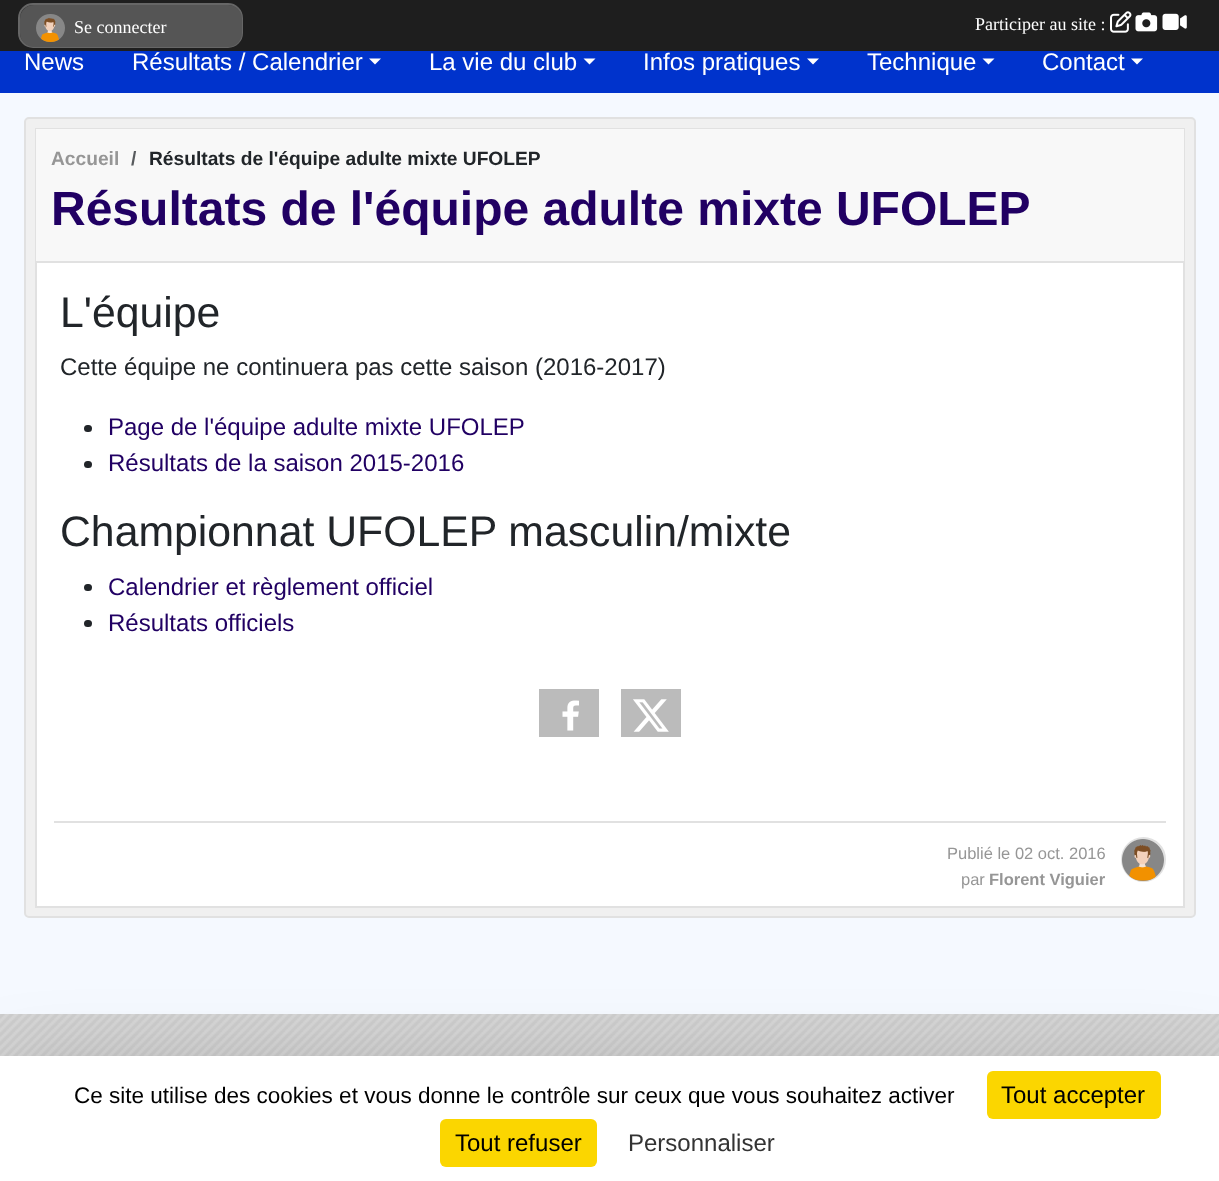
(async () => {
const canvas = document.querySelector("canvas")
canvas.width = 1219
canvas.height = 1181
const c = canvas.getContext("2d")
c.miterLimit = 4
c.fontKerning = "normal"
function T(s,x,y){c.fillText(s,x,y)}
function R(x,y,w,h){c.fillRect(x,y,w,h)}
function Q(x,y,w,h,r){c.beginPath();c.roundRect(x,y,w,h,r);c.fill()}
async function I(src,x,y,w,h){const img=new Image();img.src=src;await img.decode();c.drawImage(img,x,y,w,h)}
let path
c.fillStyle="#f5f9ff"
R(0,0,1219,1181)
c.fillStyle="#1e1e1e"
R(0,0,1219,51)
c.fillStyle="#333"
c.beginPath()
c.roundRect(19,4,223,43,14)
c.fill()
c.strokeStyle="#666"
c.lineWidth=2
c.stroke()
c.fillStyle="#555"
Q(20,5,222,42,14)
await I("1.png",36,14,29,28)
c.font="18px Liberation Serif"
c.fillStyle="#fff"
T("Se connecter",74,33)
T("Participer au site :",975,30)
await I("2.png",1110,11,22,22)
await I("3.png",1135,12,23,20)
await I("4.png",1162,13,25,17)
c.fillStyle="#03c"
R(0,51,1219,42)
c.font="24px Liberation Sans"
c.fillStyle="#fff"
T("News",24,70)
T("Résultats / Calendrier",132,70)
path = new Path2D("M369 58.5h12l-6 6z")
c.fill(path)
T("La vie du club",429,70)
path = new Path2D("M583.5 58.5h12l-6 6z")
c.fill(path)
T("Infos pratiques",643,70)
path = new Path2D("M807 58.5h12l-6 6z")
c.fill(path)
T("Technique",867,70)
path = new Path2D("M982.5 58.5h12l-6 6z")
c.fill(path)
T("Contact",1042,70)
path = new Path2D("M1131 58.5h12l-6 6z")
c.fill(path)
c.fillStyle="#f0f0f0"
c.beginPath()
c.roundRect(25,118,1170,799,4)
c.fill()
c.strokeStyle="#e1e1e1"
c.stroke()
c.fillStyle="#fff"
R(37,263,1146,643)
c.strokeRect(36,129,1148,778)
c.fillStyle="#f8f8f8"
R(36,129,1148,132)
c.fillStyle="#e1e1e1"
R(36,261,1148,2)
c.font="bold 19.2px Liberation Sans"
c.fillStyle="#969696"
T("Accueil",51,165)
c.fillStyle="#575a5d"
T("/",131,165)
c.fillStyle="#212529"
T("Résultats de l'équipe adulte mixte UFOLEP",149,165)
c.font="bold 48px Liberation Sans"
c.fillStyle="#210063"
T("Résultats de l'équipe adulte mixte UFOLEP",51,225)
c.font="42.75px Liberation Sans"
c.fillStyle="#212529"
T("L'équipe",60,327)
c.font="24px Liberation Sans"
T("Cette équipe ne continuera pas cette saison (2016-2017)",60,375)
Q(84,425,8,7,3.5)
c.fillStyle="#210063"
T("Page de l'équipe adulte mixte UFOLEP",108,435)
c.fillStyle="#212529"
Q(84,461,8,7,3.5)
c.fillStyle="#210063"
T("Résultats de la saison 2015-2016",108,471)
c.font="42.75px Liberation Sans"
c.fillStyle="#212529"
T("Championnat UFOLEP masculin/mixte",60,546)
Q(84,584,8,7,3.5)
c.font="24px Liberation Sans"
c.fillStyle="#210063"
T("Calendrier et règlement officiel",108,595)
c.fillStyle="#212529"
Q(84,620,8,7,3.5)
c.fillStyle="#210063"
T("Résultats officiels",108,631)
c.fillStyle="#bbb"
R(539,689,60,48)
await I("5.png",562,700,17,31)
R(621,689,60,48)
await I("6.png",633,699,36,33)
c.fillStyle="#e1e1e1"
R(54,821,1112,2)
c.beginPath()
c.arc(1143.5,859.5,21.5,0,7)
c.stroke()
c.font="16.5px Liberation Sans"
c.fillStyle="#969696"
T("Publié le 02 oct. 2016",947,859)
T("par",961,885)
c.font="bold 16.5px Liberation Sans"
T("Florent Viguier",989,885)
await I("7.png",1122,839,42,42)
await I("8.png",0,1014,1219,42)
c.fillStyle="#00000040"
c.filter="blur(45px)"
c.beginPath()
c.rect(0,1086,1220,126)
c.fill()
c.filter="none"
c.fillStyle="#fff"
R(0,1056,1219,125)
c.save()
c.beginPath()
c.rect(59,1082,910,25)
c.clip()
c.font="22.5px Liberation Sans"
c.fillStyle="#000"
T("Ce site utilise des cookies et vous donne le contrôle sur ceux que vous souhaitez activer",74,1103)
c.restore()
c.fillStyle="#fbd600"
Q(987,1071,174,48,6)
c.font="24px Liberation Sans"
c.fillStyle="#000"
T("Tout accepter",1001,1103)
c.fillStyle="#fbd600"
Q(440,1119,157,48,6)
c.fillStyle="#000"
T("Tout refuser",455,1151)
c.fillStyle="#333"
T("Personnaliser",628,1151)
})()
